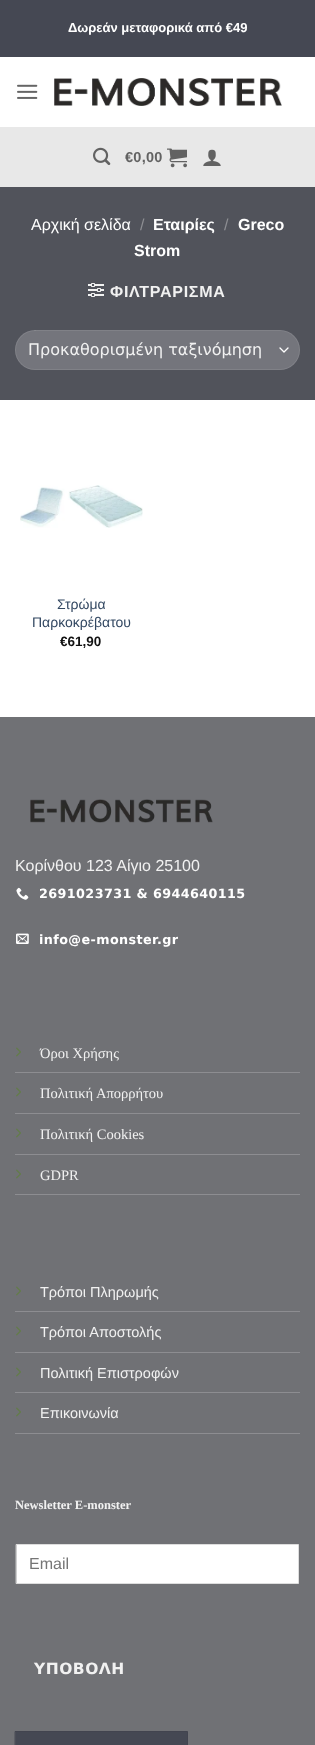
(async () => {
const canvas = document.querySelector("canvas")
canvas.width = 315
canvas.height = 1745
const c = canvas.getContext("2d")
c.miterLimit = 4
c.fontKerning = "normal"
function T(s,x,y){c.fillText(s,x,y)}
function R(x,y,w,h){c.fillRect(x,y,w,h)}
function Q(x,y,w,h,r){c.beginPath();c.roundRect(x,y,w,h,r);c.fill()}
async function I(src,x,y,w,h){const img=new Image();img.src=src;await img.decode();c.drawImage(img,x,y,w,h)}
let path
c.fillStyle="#fff"
R(0,0,315,1745)
c.fillStyle="#454853"
R(0,0,315,57)
c.font="bold 13px Liberation Sans"
c.fillStyle="#fff"
T("Δωρεάν μεταφορικά από €49",68,32)
await I("1.png",17,84,21,15)
await I("2.png",54,78,228,28)
c.fillStyle="#e8e8e8"
R(0,127,315,60)
await I("3.png",93,147,18,18)
c.letterSpacing="0.25px"
c.font="bold 14.5px Liberation Sans"
c.fillStyle="#626262"
T("€0,00",125,162)
await I("4.png",167,148,20,20)
await I("5.png",203,149,18,17)
c.fillStyle="#51535b"
R(0,187,315,213)
c.letterSpacing="0px"
c.font="16px Liberation Sans"
c.fillStyle="#fff"
T("Αρχική σελίδα",31,230)
c.fillStyle="#8e8f94"
T("/",140,230)
c.font="bold 16px Liberation Sans"
c.fillStyle="#fff"
T("Εταιρίες",153,230)
c.font="16px Liberation Sans"
c.fillStyle="#8e8f94"
T("/",224,230)
c.font="bold 16px Liberation Sans"
c.fillStyle="#fff"
T("Greco",238,230)
T("Strom",134,256)
await I("6.png",88,283,16,14)
c.letterSpacing="0.75px"
c.fillStyle="#f1f1f1"
T("ΦΙΛΤΡΑΡΙΣΜΑ",110,297)
c.fillStyle="#74757c"
Q(15,330,285,40,20)
path = new Path2D("M280 348l4 4l4-4")
c.strokeStyle="#fff"
c.lineWidth=1.3
c.lineCap="round"
c.lineJoin="round"
c.stroke(path)
c.beginPath()
c.roundRect(15.5,330.5,284,39,19.5)
c.strokeStyle="#ffffff17"
c.lineWidth=1
c.lineJoin="miter"
c.stroke()
c.letterSpacing="0px"
c.font="16px DejaVu Sans"
c.fillStyle="#f1f1f1"
T("Προκαθορισμένη ταξινόμηση",28,355)
await I("7.png",20,485,123,43)
c.font="14px Liberation Sans"
c.fillStyle="#334862"
T("Στρώμα",57,609)
T("Παρκοκρέβατου",32,627)
c.font="bold 13.5px Liberation Sans"
c.fillStyle="#111"
T("€61,90",60,646)
c.fillStyle="#707175"
R(0,717,315,1028)
await I("8.png",30,799,183,24)
c.font="16px Liberation Sans"
c.fillStyle="#f1f1f1"
T("Κορίνθου 123 Αίγιο 25100",15,871)
await I("9.png",16,887,13,13)
c.letterSpacing="0.4px"
c.font="bold 12.75px DejaVu Sans"
c.fillStyle="#fff"
T("2691023731 & 6944640115",39,898)
await I("10.png",16,933,13,11)
T("info@e-monster.gr",39,944)
c.fillStyle="#8d8d91"
R(15,1072,285,1)
await I("11.png",16,1047,5,10)
c.letterSpacing="0px"
c.font="14.5px Liberation Serif"
c.fillStyle="#f1f1f1"
T("Όροι Χρήσης",40,1058)
c.fillStyle="#8d8d91"
R(15,1113,285,1)
await I("11.png",16,1087,5,10)
c.fillStyle="#f1f1f1"
T("Πολιτική Απορρήτου",40,1098)
c.fillStyle="#8d8d91"
R(15,1154,285,1)
await I("11.png",16,1128,5,10)
c.fillStyle="#f1f1f1"
T("Πολιτική Cookies",40,1139)
c.fillStyle="#8d8d91"
R(15,1194,285,1)
await I("11.png",16,1169,5,10)
c.fillStyle="#f1f1f1"
T("GDPR",40,1180)
c.fillStyle="#8d8d91"
R(15,1311,285,1)
await I("11.png",16,1286,5,10)
c.font="14.5px Liberation Sans"
c.fillStyle="#f1f1f1"
T("Τρόποι Πληρωμής",40,1297)
c.fillStyle="#8d8d91"
R(15,1352,285,1)
await I("11.png",16,1326,5,10)
c.fillStyle="#f1f1f1"
T("Τρόποι Αποστολής",40,1337)
c.fillStyle="#8d8d91"
R(15,1392,285,1)
await I("11.png",16,1367,5,10)
c.fillStyle="#f1f1f1"
T("Πολιτική Επιστροφών",40,1378)
c.fillStyle="#8d8d91"
R(15,1433,285,1)
await I("11.png",16,1407,5,10)
c.fillStyle="#f1f1f1"
T("Επικοινωνία",40,1418)
c.font="bold 12.5px Liberation Serif"
T("Newsletter E-monster",15,1509)
c.fillStyle="#fff"
c.beginPath()
c.rect(16.5,1544.5,282,39)
c.fill()
c.strokeStyle="#ddd"
c.stroke()
c.font="16px Liberation Sans"
c.fillStyle="#757575"
T("Email",29,1569)
c.letterSpacing="0.5px"
c.font="bold 15.5px DejaVu Sans"
c.fillStyle="#f1f1f1"
T("ΥΠΟΒΟΛΗ",34,1674)
c.fillStyle="#454853"
c.beginPath()
c.rect(15.5,1731.5,172,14)
c.fill()
c.strokeStyle="#42444f"
c.stroke()
})()
